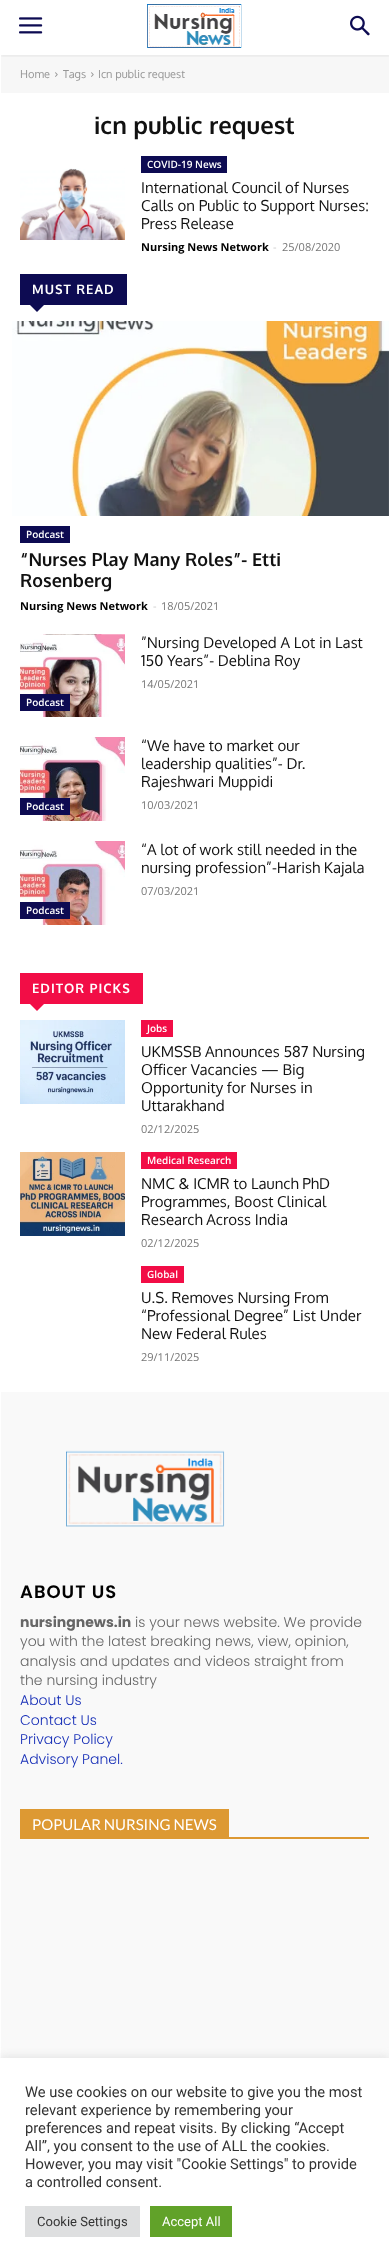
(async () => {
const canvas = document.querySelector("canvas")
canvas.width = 389
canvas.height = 2267
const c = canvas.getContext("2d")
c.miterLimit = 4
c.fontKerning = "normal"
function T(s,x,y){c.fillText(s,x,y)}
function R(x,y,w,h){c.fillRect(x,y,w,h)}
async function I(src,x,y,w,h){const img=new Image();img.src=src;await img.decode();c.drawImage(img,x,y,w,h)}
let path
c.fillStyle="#fff"
R(0,0,389,2267)
await I("1.png",19,17,24,17)
await I("2.png",147,4,95,44)
await I("3.png",350,15,20,21)
c.fillStyle="#f7f7f7"
R(1,55,388,38)
c.save()
c.beginPath()
c.rect(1,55,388,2)
c.clip()
c.fillStyle="#0000000d"
c.filter="blur(1.5px)"
c.beginPath()
c.rect(1,2,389,55)
c.fill()
c.filter="none"
c.restore()
c.font="11px Oxygen"
c.fillStyle="#969696"
T("Home",20,78)
await I("4.png",55,72,3,5)
T("Tags",63,78)
await I("4.png",91,72,3,5)
T("Icn public request",98,78)
c.font="bold 24px Oxygen"
c.fillStyle="#111"
T("icn public request",94,134)
await I("5.png",20,168,105,72)
c.fillStyle="#0d0b52"
R(141,156,86,17)
c.font="600 10px Open Sans"
c.fillStyle="#fff"
T("COVID-19 News",147,168)
c.font="15px Oxygen"
c.fillStyle="#111"
T("International Council of Nurses",141,193)
T("Calls on Public to Support Nurses:",141,211)
T("Press Release",141,229)
c.font="bold 11px Open Sans"
c.fillStyle="#000"
T("Nursing News Network",141,251)
c.font="11px Open Sans"
c.fillStyle="#ccc"
T("-",273,251)
c.fillStyle="#767676"
T("25/08/2020",282,251)
c.fillStyle="#0d0b52"
R(20,274,107,31)
c.letterSpacing="1px"
c.font="bold 13px Oxygen"
c.fillStyle="#fff"
T("MUST READ",32,294)
c.fillStyle="#0d0b52"
path = new Path2D("M30 305h14l-7 7z")
c.fill(path)
await I("6.png",12,321,377,195)
R(20,526,50,17)
c.letterSpacing="0px"
c.font="600 10px Open Sans"
c.fillStyle="#fff"
T("Podcast",26,538)
c.font="bold 18px Oxygen"
c.fillStyle="#111"
T("“Nurses Play Many Roles”- Etti",20,566)
T("Rosenberg",20,587)
c.font="bold 11px Open Sans"
c.fillStyle="#000"
T("Nursing News Network",20,610)
c.font="11px Open Sans"
c.fillStyle="#ccc"
T("-",153,610)
c.fillStyle="#767676"
T("18/05/2021",161,610)
c.font="15px Oxygen"
c.fillStyle="#111"
T("”Nursing Developed A Lot in Last",141,648)
T("150 Years”- Deblina Roy",141,666)
c.font="11px Open Sans"
c.fillStyle="#767676"
T("14/05/2021",141,688)
await I("7.png",20,634,105,83)
c.fillStyle="#0d0b52"
R(20,694,50,17)
c.font="600 10px Open Sans"
c.fillStyle="#fff"
T("Podcast",26,706)
await I("8.png",20,737,105,84)
c.fillStyle="#0d0b52"
R(20,798,50,17)
c.fillStyle="#fff"
T("Podcast",26,810)
c.font="15px Oxygen"
c.fillStyle="#111"
T("“We have to market our",141,751)
T("leadership qualities”- Dr.",141,769)
T("Rajeshwari Muppidi",141,787)
c.font="11px Open Sans"
c.fillStyle="#767676"
T("10/03/2021",141,809)
c.font="15px Oxygen"
c.fillStyle="#111"
T("“A lot of work still needed in the",141,855)
T("nursing profession”-Harish Kajala",141,873)
c.font="11px Open Sans"
c.fillStyle="#767676"
T("07/03/2021",141,895)
await I("9.png",20,841,105,84)
c.fillStyle="#0d0b52"
R(20,902,50,17)
c.font="600 10px Open Sans"
c.fillStyle="#fff"
T("Podcast",26,914)
c.fillStyle="#f20d46"
R(20,973,123,31)
c.letterSpacing="1px"
c.font="bold 13px Oxygen"
c.fillStyle="#fff"
T("EDITOR PICKS",32,993)
c.fillStyle="#f20d46"
path = new Path2D("M30 1004h14l-7 7z")
c.fill(path)
await I("10.png",20,1020,105,84)
R(141,1020,32,17)
c.letterSpacing="0px"
c.font="600 10px Open Sans"
c.fillStyle="#fff"
T("Jobs",147,1032)
c.font="15px Oxygen"
c.fillStyle="#111"
T("UKMSSB Announces 587 Nursing",141,1057)
T("Officer Vacancies — Big",141,1075)
T("Opportunity for Nurses in",141,1093)
T("Uttarakhand",141,1111)
c.font="11px Open Sans"
c.fillStyle="#767676"
T("02/12/2025",141,1133)
await I("11.png",20,1152,105,84)
c.fillStyle="#f20d46"
R(141,1152,96,17)
c.font="600 10px Open Sans"
c.fillStyle="#fff"
T("Medical Research",147,1164)
c.font="15px Oxygen"
c.fillStyle="#111"
T("NMC & ICMR to Launch PhD",141,1189)
T("Programmes, Boost Clinical",141,1207)
T("Research Across India",141,1225)
c.font="11px Open Sans"
c.fillStyle="#767676"
T("02/12/2025",141,1247)
c.fillStyle="#f20d46"
R(141,1266,43,17)
c.font="600 10px Open Sans"
c.fillStyle="#fff"
T("Global",147,1278)
c.font="15px Oxygen"
c.fillStyle="#111"
T("U.S. Removes Nursing From",141,1303)
T("“Professional Degree” List Under",141,1321)
T("New Federal Rules",141,1339)
c.font="11px Open Sans"
c.fillStyle="#767676"
T("29/11/2025",141,1361)
c.fillStyle="#f9f9f9"
R(1,1392,388,666)
await I("12.png",66,1450,159,77)
c.letterSpacing="1px"
c.font="600 18px Poppins"
c.fillStyle="#000"
T("ABOUT US",20,1598)
c.letterSpacing="0px"
c.font="bold 14px Poppins"
c.fillStyle="#666"
T("nursingnews.in",20,1627)
c.font="300 14px Poppins"
T("is your news website. We provide",135,1627)
T("you with the latest breaking news, view, opinion,",20,1646)
T("analysis and updates and videos straight from",20,1666)
T("the nursing industry",20,1685)
c.fillStyle="#162eb7"
T("About Us",20,1705)
T("Contact Us",20,1725)
T("Privacy Policy",20,1744)
T("Advisory Panel.",20,1764)
c.fillStyle="#d93"
R(20,1837,349,2)
R(20,1809,209,28)
c.font="15px Lato"
c.fillStyle="#fff"
T("POPULAR NURSING NEWS",32,1830)
c.fillStyle="#acabab4d"
c.filter="blur(5px)"
c.beginPath()
c.rect(0,2057,389,209)
c.fill()
c.filter="none"
c.fillStyle="#fff"
R(0,2058,389,209)
c.font="14.7px Roboto"
c.fillStyle="#333"
T("We use cookies on our website to give you the most",25,2097)
T("relevant experience by remembering your",25,2115)
T("preferences and repeat visits. By clicking “Accept",25,2133)
T("All”, you consent to the use of ALL the cookies.",25,2151)
T("However, you may visit \"Cookie Settings\" to provide",25,2169)
T("a controlled consent.",25,2187)
c.fillStyle="#dedfe0"
R(25,2206,115,31)
c.font="13px Roboto"
c.fillStyle="#333"
T("Cookie Settings",37,2226)
c.fillStyle="#61a229"
R(150,2206,82,31)
c.fillStyle="#fff"
T("Accept All",162,2226)
})()
